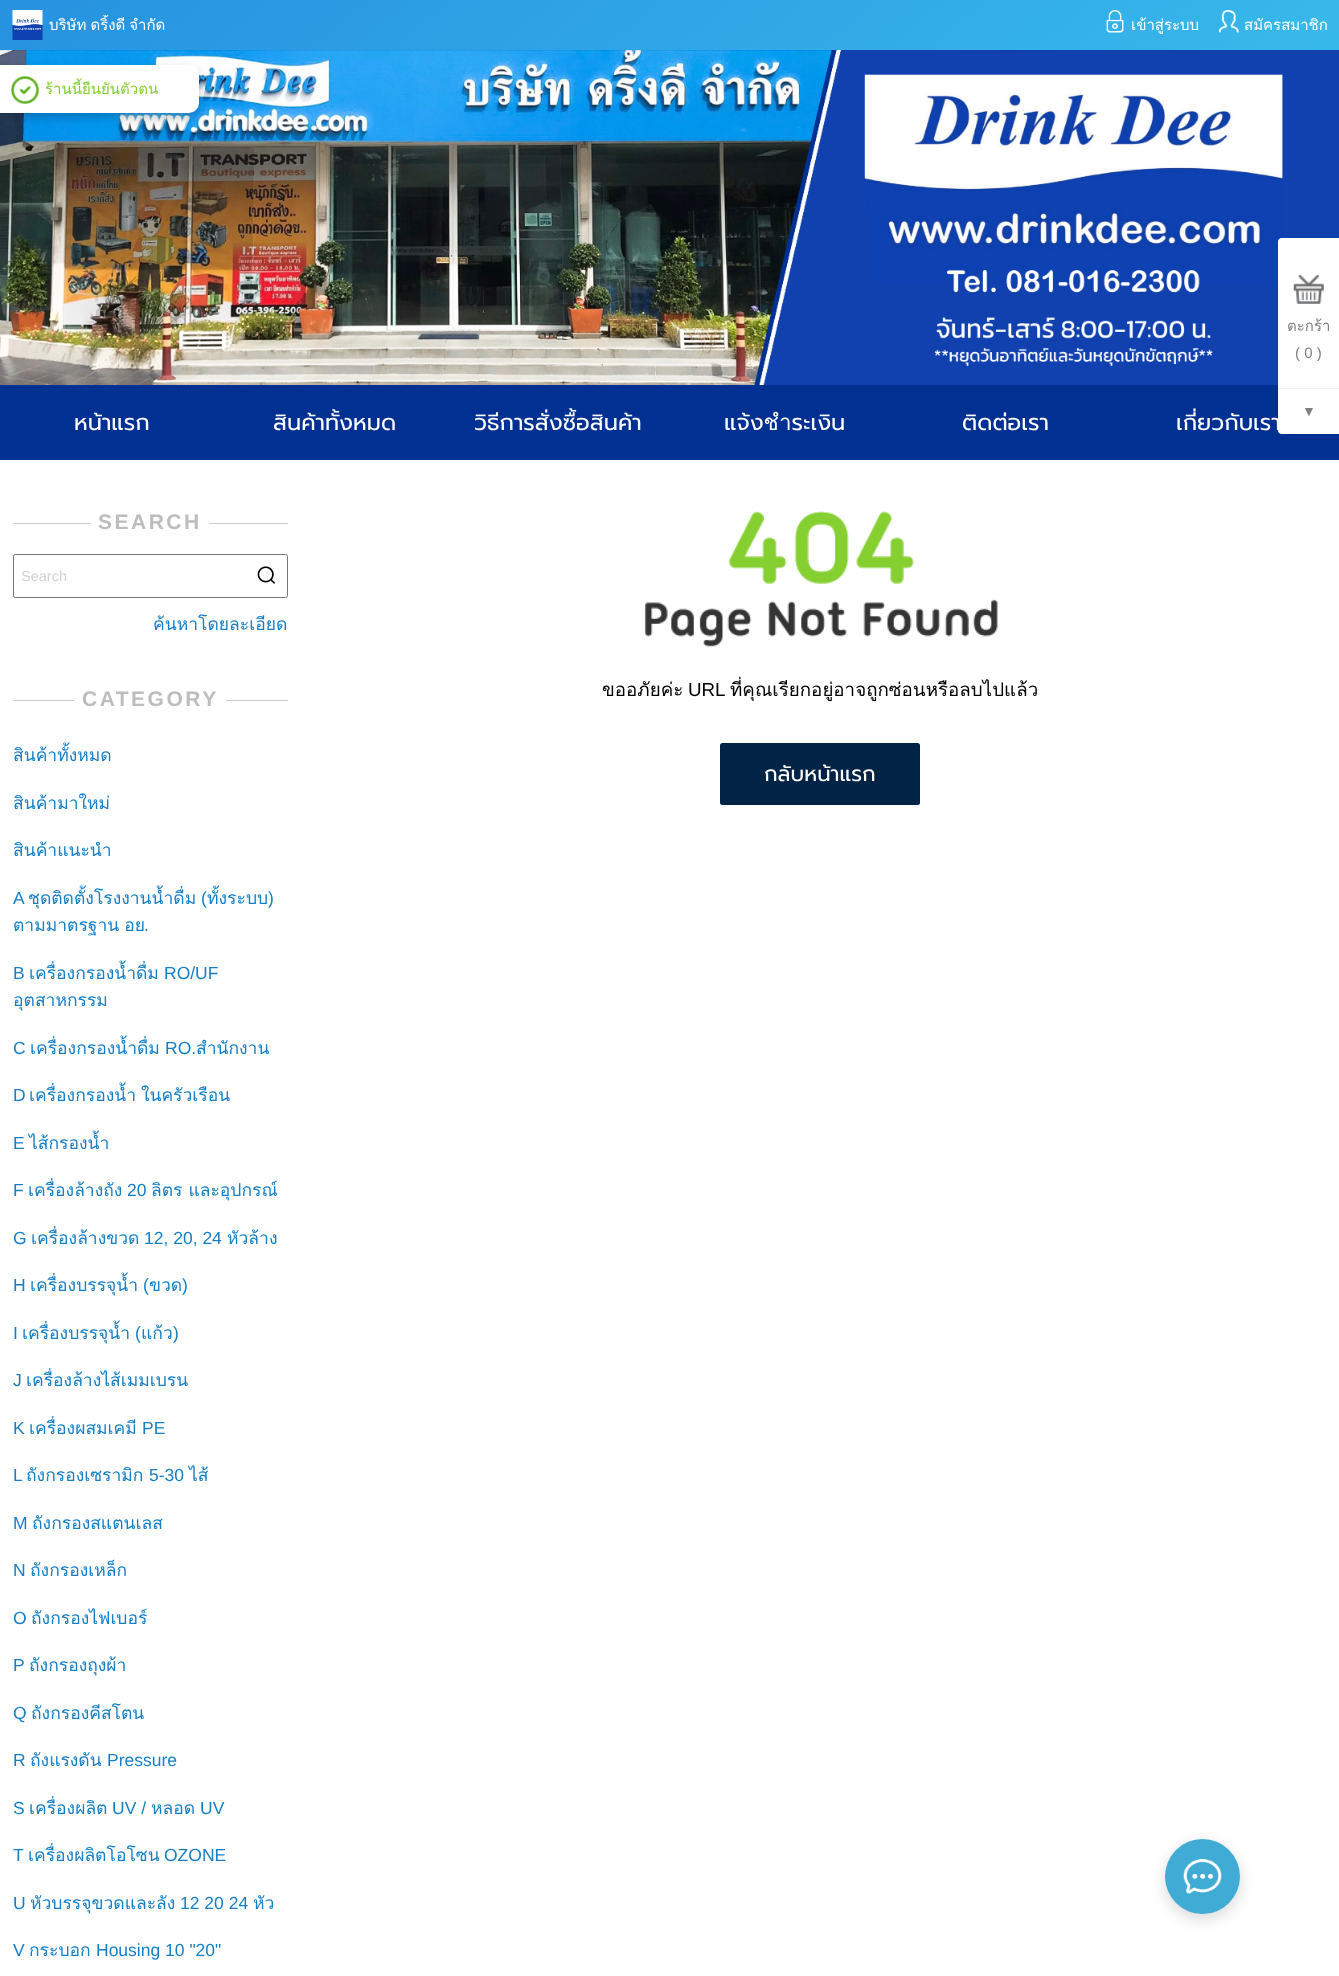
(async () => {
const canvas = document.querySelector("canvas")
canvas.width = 1339
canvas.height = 1976
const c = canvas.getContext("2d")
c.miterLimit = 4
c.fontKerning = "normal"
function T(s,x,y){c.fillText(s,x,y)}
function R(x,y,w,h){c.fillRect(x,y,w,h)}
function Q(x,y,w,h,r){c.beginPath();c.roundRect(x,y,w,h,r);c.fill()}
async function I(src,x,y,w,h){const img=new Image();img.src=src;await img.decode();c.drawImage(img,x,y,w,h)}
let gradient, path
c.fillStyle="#fff"
R(0,0,1339,1976)
gradient = c.createLinearGradient(392,-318,948,368)
gradient.addColorStop(0,"#2792e0")
gradient.addColorStop(1,"#38b9eb")
c.fillStyle = gradient
R(0,0,1339,50)
await I("1.png",12,10,31,30)
c.save()
c.beginPath()
c.rect(49,15,116,20)
c.clip()
c.wordSpacing="-1px"
c.font="15px Loma"
c.fillStyle="#fff"
T("บริษัท ดริ้งดี จำกัด",49,30)
c.restore()
await I("2.png",1106,10,18,23)
c.font="15px Loma"
c.fillStyle="#fff"
T("เข้าสู่ระบบ",1131,30)
await I("3.png",1219,10,20,23)
T("สมัครสมาชิก",1244,30)
await I("5.png",0,50,1339,335)
c.fillStyle="#00000033"
c.filter="blur(5px)"
c.beginPath()
c.roundRect(0,70,199,48,10)
c.fill()
c.filter="none"
c.fillStyle="#fff"
c.beginPath()
c.roundRect(0,65,199,48,[0,10,10,0])
c.fill()
await I("4.png",11,76,29,29)
c.fillStyle="#85cf2f"
T("ร้านนี้ยืนยันตัวตน",45,94)
c.fillStyle="#003092"
R(0,385,1339,75)
c.font="22.5px Prompt"
c.fillStyle="#fff"
T("หน้าแรก",74,430)
T("สินค้าทั้งหมด",273,430)
T("วิธีการสั่งซื้อสินค้า",474,430)
T("แจ้งชำระเงิน",724,430)
T("ติดต่อเรา",962,430)
T("เกี่ยวกับเรา",1176,430)
c.fillStyle="#ccc"
c.filter="blur(0.5px)"
c.beginPath()
c.roundRect(1278,238,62,196,4)
c.fill()
c.filter="none"
c.fillStyle="#fff"
path = new Path2D("M1282 238h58v196h-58c-2 0-4-2-4-4v-188c0-2 2-4 4-4z")
c.fill(path)
await I("6.png",1293,274,31,30)
c.font="15px Loma"
c.fillStyle="#808080"
T("ตะกร้า",1287,331)
c.font="15px Liberation Sans"
T("( 0 )",1295,358)
c.fillStyle="#f2f2f2"
R(1278,388,61,1)
c.font="14px Liberation Sans"
c.fillStyle="#808080"
T("▼",1302,416)
c.fillStyle="#ccc"
R(13,523,275,1)
c.fillStyle="#fff"
R(91,523,118,1)
c.letterSpacing="2.5px"
c.font="bold 21px Liberation Sans"
c.fillStyle="#bdbdbd"
T("SEARCH",98,529)
c.beginPath()
c.roundRect(13.5,554.5,274,43,2)
c.strokeStyle="#767676"
c.stroke()
c.letterSpacing="0px"
c.font="14.5px Liberation Sans"
c.fillStyle="#d1d1d1"
T("Search",21,581)
await I("7.png",257,566,18,18)
c.font="17.5px Loma"
c.fillStyle="#147fc7"
T("ค้นหาโดยละเอียด",153,630)
c.fillStyle="#ccc"
R(13,700,275,1)
c.fillStyle="#fff"
R(74,700,152,1)
c.letterSpacing="2.5px"
c.font="bold 21px Liberation Sans"
c.fillStyle="#bdbdbd"
T("CATEGORY",82,706)
c.letterSpacing="0px"
c.font="17.5px Loma"
c.fillStyle="#147fc7"
T("สินค้าทั้งหมด",13,761)
T("สินค้ามาใหม่",13,809)
T("สินค้าแนะนำ",13,856)
c.font="17.5px Liberation Sans"
T("A",13,904)
c.font="17.5px Loma"
T("ชุดติดตั้งโรงงานน้ำดื่ม",28,904)
c.font="17.5px Liberation Sans"
T("(",201,904)
c.font="17.5px Loma"
T("ทั้งระบบ",207,904)
c.font="17.5px Liberation Sans"
T(")",268,904)
c.wordSpacing="-1px"
c.font="17.5px Loma"
T("ตามมาตรฐาน อย",13,931)
c.wordSpacing="0px"
c.font="17.5px Liberation Sans"
T(".",144,931)
T("B",13,979)
c.font="17.5px Loma"
T("เครื่องกรองน้ำดื่ม",29,979)
c.font="17.5px Liberation Sans"
T("RO/UF",164,979)
c.font="17.5px Loma"
T("อุตสาหกรรม",13,1006)
c.font="17.5px Liberation Sans"
T("C",13,1054)
c.font="17.5px Loma"
T("เครื่องกรองน้ำดื่ม",30,1054)
c.font="17.5px Liberation Sans"
T("RO.",165,1054)
c.font="17.5px Loma"
T("สำนักงาน",196,1054)
c.font="17.5px Liberation Sans"
T("D",13,1101)
c.wordSpacing="-1px"
c.font="17.5px Loma"
T("เครื่องกรองน้ำ ในครัวเรือน",29,1101)
c.wordSpacing="0px"
c.font="17.5px Liberation Sans"
T("E",13,1149)
c.font="17.5px Loma"
T("ไส้กรองน้ำ",29,1149)
c.font="17.5px Liberation Sans"
T("F",13,1196)
c.font="17.5px Loma"
T("เครื่องล้างถัง",28,1196)
c.font="17.5px Liberation Sans"
T("20",127,1196)
c.font="17.5px Loma"
T("ลิตร และอุปกรณ์",151,1196)
c.font="17.5px Liberation Sans"
T("G",13,1244)
c.font="17.5px Loma"
T("เครื่องล้างขวด",31,1244)
c.font="17.5px Liberation Sans"
T("12, 20, 24",144,1244)
c.font="17.5px Loma"
T("หัวล้าง",227,1244)
c.font="17.5px Liberation Sans"
T("H",13,1291)
c.font="17.5px Loma"
T("เครื่องบรรจุนํ้า",30,1291)
c.font="17.5px Liberation Sans"
T("(",143,1291)
c.font="17.5px Loma"
T("ขวด",149,1291)
c.font="17.5px Liberation Sans"
T(")",182,1291)
T("I",13,1339)
c.font="17.5px Loma"
T("เครื่องบรรจุน้ำ",22,1339)
c.font="17.5px Liberation Sans"
T("(",135,1339)
c.font="17.5px Loma"
T("แก้ว",141,1339)
c.font="17.5px Liberation Sans"
T(")",173,1339)
T("J",13,1386)
c.font="17.5px Loma"
T("เครื่องล้างไส้เมมเบรน",26,1386)
c.font="17.5px Liberation Sans"
T("K",13,1434)
c.font="17.5px Loma"
T("เครื่องผสมเคมี",29,1434)
c.font="17.5px Liberation Sans"
T("PE",142,1434)
T("L",13,1481)
c.font="17.5px Loma"
T("ถังกรองเซรามิก",26,1481)
c.font="17.5px Liberation Sans"
T("5-30",149,1481)
c.font="17.5px Loma"
T("ไส้",189,1481)
c.font="17.5px Liberation Sans"
T("M",13,1529)
c.font="17.5px Loma"
T("ถังกรองสแตนเลส",32,1529)
c.font="17.5px Liberation Sans"
T("N",13,1576)
c.font="17.5px Loma"
T("ถังกรองเหล็ก",30,1576)
c.font="17.5px Liberation Sans"
T("O",13,1624)
c.font="17.5px Loma"
T("ถังกรองไฟเบอร์",31,1624)
c.font="17.5px Liberation Sans"
T("P",13,1671)
c.font="17.5px Loma"
T("ถังกรองถุงผ้า",29,1671)
c.font="17.5px Liberation Sans"
T("Q",13,1719)
c.font="17.5px Loma"
T("ถังกรองคีสโตน",31,1719)
c.font="17.5px Liberation Sans"
T("R",13,1766)
c.font="17.5px Loma"
T("ถังแรงดัน",30,1766)
c.font="17.5px Liberation Sans"
T("Pressure",107,1766)
T("S",13,1814)
c.font="17.5px Loma"
T("เครื่องผลิต",29,1814)
c.font="17.5px Liberation Sans"
T("UV /",112,1814)
c.font="17.5px Loma"
T("หลอด",151,1814)
c.font="17.5px Liberation Sans"
T("UV",200,1814)
T("T",13,1861)
c.font="17.5px Loma"
T("เครื่องผลิตโอโซน",28,1861)
c.font="17.5px Liberation Sans"
T("OZONE",164,1861)
T("U",13,1909)
c.font="17.5px Loma"
T("หัวบรรจุขวดและลัง",30,1909)
c.font="17.5px Liberation Sans"
T("12 20 24",180,1909)
c.font="17.5px Loma"
T("หัว",253,1909)
c.font="17.5px Liberation Sans"
T("V",13,1956)
c.font="17.5px Loma"
T("กระบอก",29,1956)
c.font="17.5px Liberation Sans"
T("Housing 10 \"20\"",96,1956)
await I("8.png",644,511,354,136)
c.font="18.75px Loma"
c.fillStyle="#000"
T("ขออภัยค่ะ",602,696)
c.font="18.75px Liberation Sans"
T("URL",688,696)
c.font="18.75px Loma"
T("ที่คุณเรียกอยู่อาจถูกซ่อนหรือลบไปแล้ว",730,696)
c.fillStyle="#012345"
Q(720,743,200,62,2.5)
c.font="21.25px Prompt"
c.fillStyle="#fff"
T("กลับหน้าแรก",764,781)
c.fillStyle="#00000026"
c.filter="blur(7.5px)"
c.beginPath()
c.roundRect(1165,1844,75,75,37.5)
c.fill()
c.filter="none"
c.fillStyle="#40acd5"
c.beginPath()
c.arc(1202.5,1876.5,37.5,0,7)
c.fill()
await I("9.png",1183,1859,39,35)
})()
